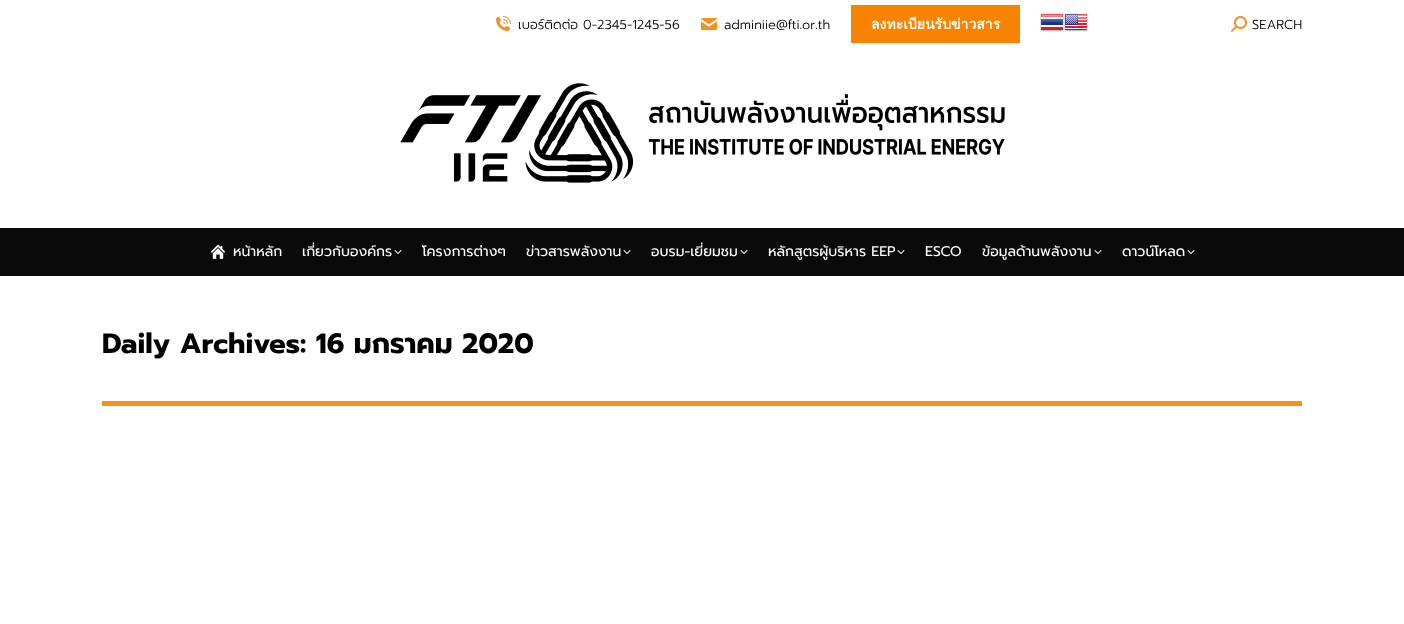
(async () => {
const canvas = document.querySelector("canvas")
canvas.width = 1404
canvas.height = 624
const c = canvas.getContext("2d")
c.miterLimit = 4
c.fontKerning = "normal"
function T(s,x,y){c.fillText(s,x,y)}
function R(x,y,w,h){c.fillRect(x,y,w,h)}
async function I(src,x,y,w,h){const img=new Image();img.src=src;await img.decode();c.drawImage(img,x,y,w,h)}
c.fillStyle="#fff"
R(0,0,1404,624)
await I("1.png",496,16,15,15)
c.font="300 13px Prompt"
c.fillStyle="#000"
T("เบอร์ติดต่อ 0-2345-1245-56",518,29)
await I("2.png",701,18,16,12)
T("adminiie@fti.or.th",724,29)
c.fillStyle="#f78300"
R(851,5,169,38)
c.font="bold 14px Loma"
c.fillStyle="#fff"
T("ลงทะเบียนรับข่าวสาร",871,29)
await I("3.png",1040,13,24,19)
await I("4.png",1064,13,24,19)
await I("5.png",1231,16,16,16)
c.font="300 13px Prompt"
c.fillStyle="#000"
T("SEARCH",1252,29)
await I("6.png",400,83,605,100)
c.fillStyle="#0a0a0a"
R(0,228,1404,48)
await I("7.png",211,244,14,15)
c.font="14px Prompt"
c.fillStyle="#fff"
T("หน้าหลัก",233,256)
T("เกี่ยวกับองค์กร",302,256)
await I("8.png",394,250,8,4)
T("โครงการต่างๆ",422,256)
T("ข่าวสารพลังงาน",526,256)
await I("8.png",623,250,8,4)
T("อบรม-เยี่ยมชม",651,256)
await I("8.png",740,250,8,4)
T("หลักสูตรผู้บริหาร EEP",768,256)
await I("8.png",897,250,8,4)
T("ESCO",925,256)
T("ข้อมูลด้านพลังงาน",982,256)
await I("8.png",1094,250,8,4)
T("ดาวน์โหลด",1122,256)
await I("8.png",1187,250,8,4)
c.font="bold 28px Prompt"
c.fillStyle="#000"
T("Daily Archives: 16 มกราคม 2020",102,353)
c.fillStyle="#f7911e"
R(102,401,1200,5)
})()
